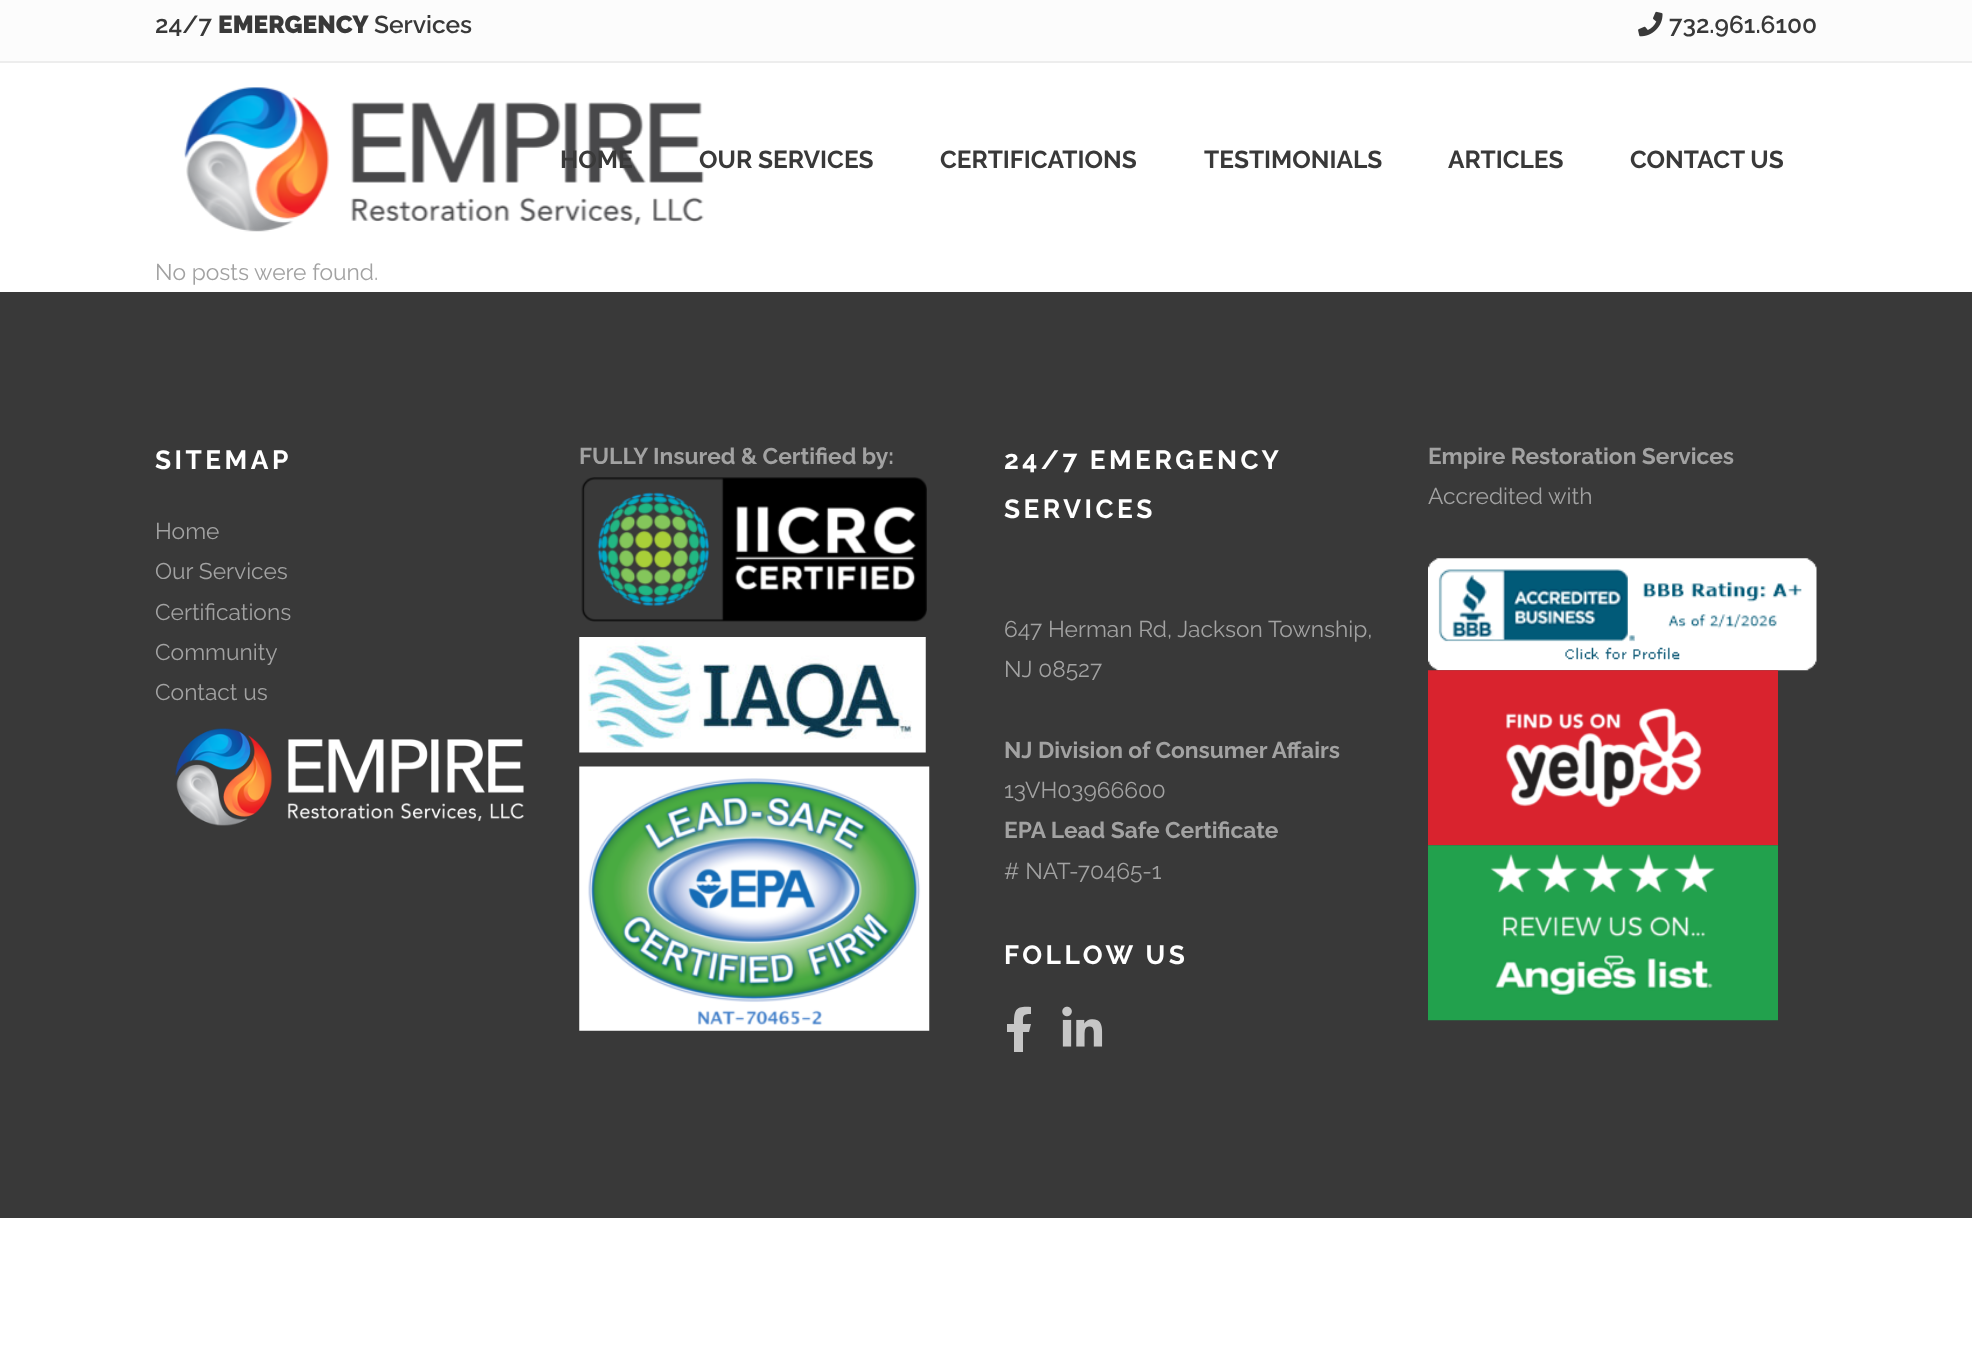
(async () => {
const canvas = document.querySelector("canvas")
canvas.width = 1972
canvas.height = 1346
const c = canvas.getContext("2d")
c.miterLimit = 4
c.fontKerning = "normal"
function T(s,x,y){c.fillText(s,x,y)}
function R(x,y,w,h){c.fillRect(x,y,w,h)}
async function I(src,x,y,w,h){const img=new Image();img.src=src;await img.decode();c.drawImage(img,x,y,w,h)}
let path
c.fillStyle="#fff"
R(0,0,1972,1346)
c.fillStyle="#fcfcfc"
R(0,0,1972,61)
c.fillStyle="#ededed"
R(0,61,1972,2)
c.font="600 24.5px Raleway"
c.fillStyle="#393939"
T("24/7",155,33)
c.font="900 24.5px Raleway"
T("EMERGENCY",218,33)
c.font="600 24.5px Raleway"
T("Services",374,33)
await I("1.png",1638,11,25,26)
T("732.961.6100",1669,33)
await I("2.png",184,87,520,145)
c.font="bold 24.5px Raleway"
T("HOME",560,168)
T("OUR SERVICES",699,168)
T("CERTIFICATIONS",940,168)
T("TESTIMONIALS",1204,168)
T("ARTICLES",1448,168)
T("CONTACT US",1630,168)
c.font="22.75px Raleway"
c.fillStyle="#a2a2a2"
T("No posts were found.",155,280)
c.fillStyle="#393939"
R(0,292,1972,926)
c.letterSpacing="3.5px"
c.font="bold 26.25px Raleway"
c.fillStyle="#fff"
T("SITEMAP",155,469)
c.letterSpacing="0px"
c.font="22.75px Raleway"
c.fillStyle="#a2a2a2"
T("Home",155,539)
T("Our Services",155,579)
T("Certifications",155,620)
T("Community",155,660)
T("Contact us",155,700)
await I("3.png",175,728,349,98)
c.font="bold 22.75px Raleway"
T("FULLY Insured & Certified by:",579,464)
await I("4.png",581,477,346,145)
await I("5.png",579,637,347,116)
await I("6.png",579,766,351,265)
c.letterSpacing="3.5px"
c.wordSpacing="-1px"
c.font="bold 26.25px Raleway"
c.fillStyle="#fff"
T("24/7 EMERGENCY",1004,469)
c.wordSpacing="0px"
T("SERVICES",1004,518)
c.letterSpacing="0px"
c.font="22.75px Raleway"
c.fillStyle="#a2a2a2"
T("647 Herman Rd, Jackson Township,",1004,637)
T("NJ 08527",1004,677)
c.font="bold 22.75px Raleway"
T("NJ Division of Consumer Affairs",1004,758)
c.font="22.75px Raleway"
T("13VH03966600",1004,798)
c.font="bold 22.75px Raleway"
T("EPA Lead Safe Certificate",1004,838)
c.font="22.75px Raleway"
T("# NAT-70465-1",1004,879)
c.letterSpacing="3.5px"
c.font="bold 26.25px Raleway"
c.fillStyle="#fff"
T("FOLLOW US",1004,964)
c.fillStyle="#c6c6c6"
path = new Path2D("M1029 1032h-6v20h-9v-20h-7v-8h7c0-15 2-18 17-17v7c-9 0-8 2-8 10h8z")
c.fill(path)
await I("7.png",1062,1006,41,41)
c.letterSpacing="0px"
c.font="bold 22.75px Raleway"
c.fillStyle="#a2a2a2"
T("Empire Restoration Services",1428,464)
c.font="22.75px Raleway"
T("Accredited with",1428,504)
await I("8.png",1428,558,389,113)
await I("9.png",1428,670,350,176)
await I("10.png",1428,845,350,176)
})()
